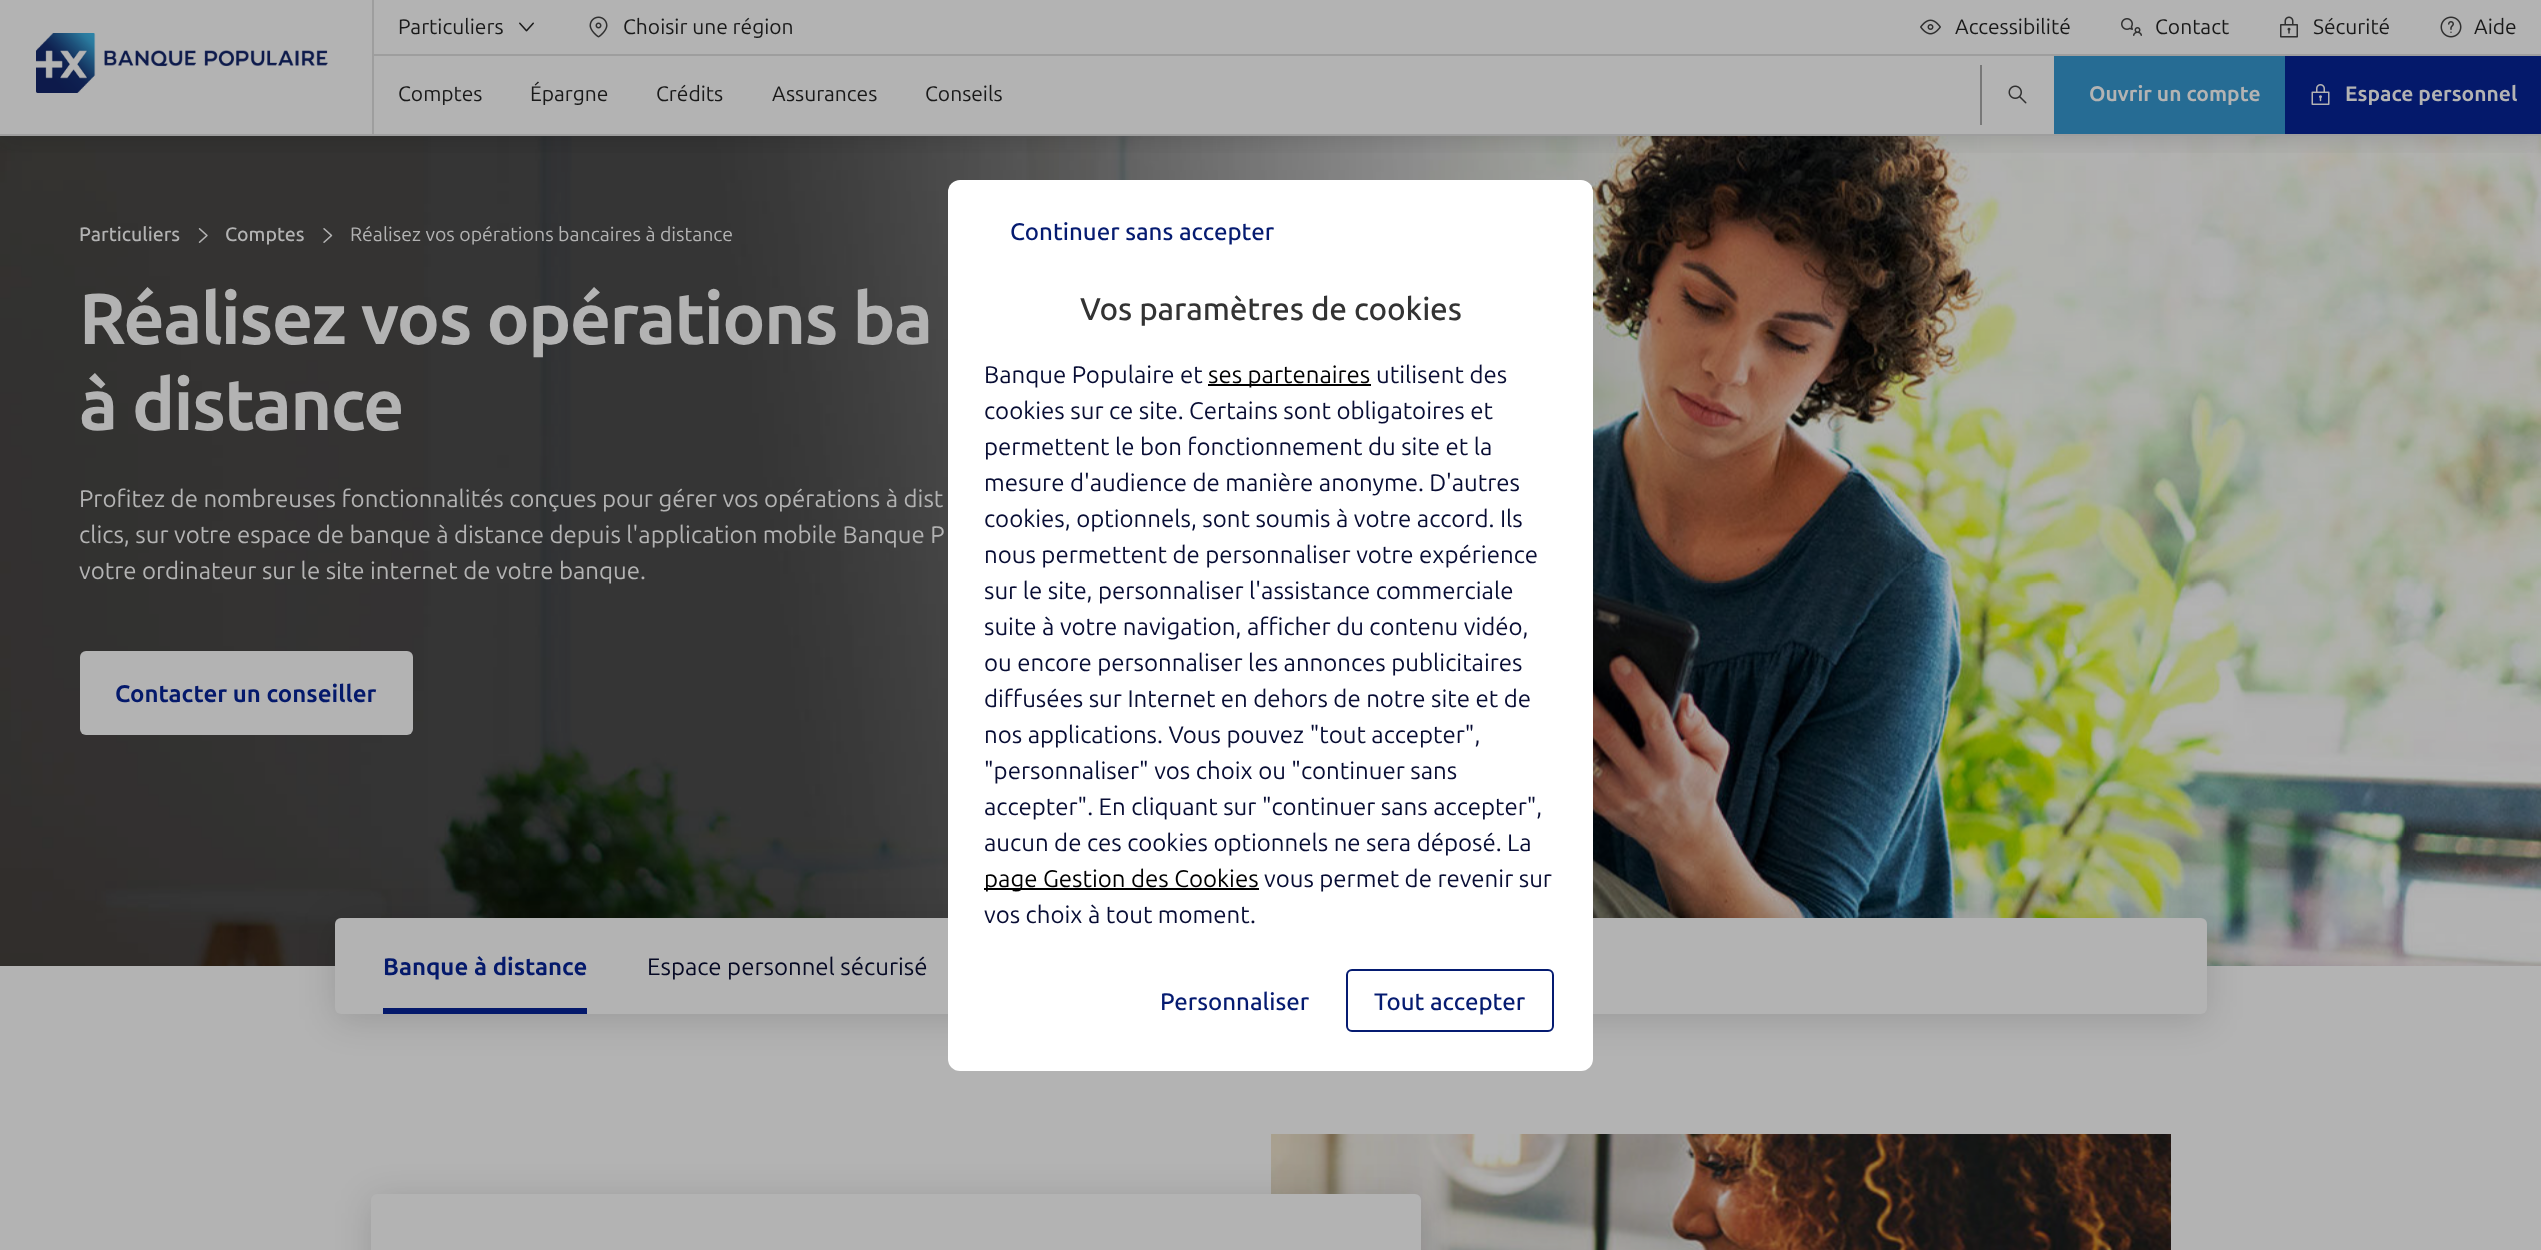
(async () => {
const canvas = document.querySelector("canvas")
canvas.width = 2541
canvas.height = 1250
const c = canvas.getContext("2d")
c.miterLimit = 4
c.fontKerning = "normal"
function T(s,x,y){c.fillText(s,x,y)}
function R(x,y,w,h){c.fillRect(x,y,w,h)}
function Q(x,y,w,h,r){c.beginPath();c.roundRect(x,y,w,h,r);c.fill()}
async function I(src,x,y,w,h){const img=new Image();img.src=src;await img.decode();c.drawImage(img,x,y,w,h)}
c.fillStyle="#b3b3b3"
R(0,0,2541,1250)
await I("10.png",0,136,2541,830)
c.save()
c.beginPath()
c.rect(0,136,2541,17)
c.clip()
c.fillStyle="#0000001f"
c.filter="blur(12px)"
c.beginPath()
c.rect(0,6,2541,135)
c.fill()
c.filter="none"
c.restore()
c.fillStyle="#9e9e9e"
R(0,134,2541,2)
await I("1.png",36,33,292,60)
R(372,0,2,134)
R(374,54,2167,2)
c.font="21px Ubuntu"
c.fillStyle="#191919"
T("Particuliers",398,34)
await I("2.png",519,22,15,10)
await I("3.png",589,16,19,22)
T("Choisir une région",623,34)
await I("4.png",1920,19,21,16)
T("Accessibilité",1955,34)
await I("5.png",2121,18,21,18)
T("Contact",2155,34)
await I("6.png",2280,16,18,22)
T("Sécurité",2313,34)
await I("7.png",2440,16,22,22)
T("Aide",2474,34)
T("Comptes",398,101)
T("Épargne",530,101)
T("Crédits",656,101)
T("Assurances",772,101)
T("Conseils",925,101)
c.fillStyle="#787878"
R(1980,65,2,60)
await I("8.png",2008,85,19,19)
c.fillStyle="#266c94"
R(2054,56,231,78)
c.font="bold 21px Ubuntu"
c.fillStyle="#b3b3b3"
T("Ouvrir un compte",2089,101)
c.fillStyle="#04196b"
R(2285,56,256,78)
await I("9.png",2311,84,19,21)
c.fillStyle="#b3b3b3"
T("Espace personnel",2345,101)
c.font="500 19.5px Ubuntu"
T("Particuliers",79,241)
await I("11.png",198,228,10,15)
T("Comptes",225,241)
await I("12.png",323,228,10,15)
c.font="19.5px Ubuntu"
T("Réalisez vos opérations bancaires à distance",350,241)
c.letterSpacing="-1.6px"
c.font="bold 72px Ubuntu"
T("Réalisez vos opérations ba",79,344)
T("à distance",79,430)
c.letterSpacing="0px"
c.font="24px Ubuntu"
T("Profitez de nombreuses fonctionnalités conçues pour gérer vos opérations à dist",79,507)
T("clics, sur votre espace de banque à distance depuis l'application mobile Banque P",79,543)
T("votre ordinateur sur le site internet de votre banque.",79,579)
Q(80,651,333,84,6)
c.font="bold 24px Ubuntu"
c.fillStyle="#04196b"
T("Contacter un conseiller",115,702)
c.fillStyle="#00000024"
c.filter="blur(18px)"
c.beginPath()
c.roundRect(335,924,1872,96,6)
c.fill()
c.filter="none"
c.fillStyle="#b3b3b3"
Q(335,918,1872,96,6)
c.fillStyle="#04196b"
T("Banque à distance",383,975)
c.font="24px Ubuntu"
c.fillStyle="#060924"
T("Espace personnel sécurisé",647,975)
c.fillStyle="#04196b"
R(383,1008,204,6)
await I("13.png",1271,1134,900,116)
c.fillStyle="#00000024"
c.filter="blur(18px)"
c.beginPath()
c.roundRect(371,1200,1050,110,6)
c.fill()
c.filter="none"
c.fillStyle="#b3b3b3"
Q(371,1194,1050,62,6)
c.fillStyle="#fff"
c.beginPath()
c.roundRect(948,180,645,152,[12,12,0,0])
c.fill()
c.font="500 24px Ubuntu"
c.fillStyle="#051b71"
T("Continuer sans accepter",1010,240)
c.letterSpacing="-0.15px"
c.font="500 31.5px Ubuntu"
c.fillStyle="#333"
T("Vos paramètres de cookies",1080,320)
c.fillStyle="#fff"
R(948,332,645,622)
c.letterSpacing="0px"
c.font="24px Ubuntu"
c.fillStyle="#080d34"
T("Banque Populaire et",984,383)
c.fillStyle="#000"
R(1208,384,163,2)
T("ses partenaires",1208,383)
c.fillStyle="#080d34"
T("utilisent des",1376,383)
T("cookies sur ce site. Certains sont obligatoires et",984,419)
T("permettent le bon fonctionnement du site et la",984,455)
T("mesure d'audience de manière anonyme. D'autres",984,491)
T("cookies, optionnels, sont soumis à votre accord. Ils",984,527)
T("nous permettent de personnaliser votre expérience",984,563)
T("sur le site, personnaliser l'assistance commerciale",984,599)
T("suite à votre navigation, afficher du contenu vidéo,",984,635)
T("ou encore personnaliser les annonces publicitaires",984,671)
T("diffusées sur Internet en dehors de notre site et de",984,707)
T("nos applications. Vous pouvez \"tout accepter\",",984,743)
T("\"personnaliser\" vos choix ou \"continuer sans",984,779)
T("accepter\". En cliquant sur \"continuer sans accepter\",",984,815)
T("aucun de ces cookies optionnels ne sera déposé. La",984,851)
c.fillStyle="#000"
R(984,888,275,2)
T("page Gestion des Cookies",984,887)
c.fillStyle="#080d34"
T("vous permet de revenir sur",1264,887)
T("vos choix à tout moment.",984,923)
c.fillStyle="#fff"
c.beginPath()
c.roundRect(948,954,645,117,[0,0,12,12])
c.fill()
c.font="500 24px Ubuntu"
c.fillStyle="#051b71"
T("Personnaliser",1160,1010)
c.beginPath()
c.roundRect(1347,970,206,61,5)
c.strokeStyle="#051b71"
c.lineWidth=2
c.stroke()
T("Tout accepter",1374,1010)
})()
